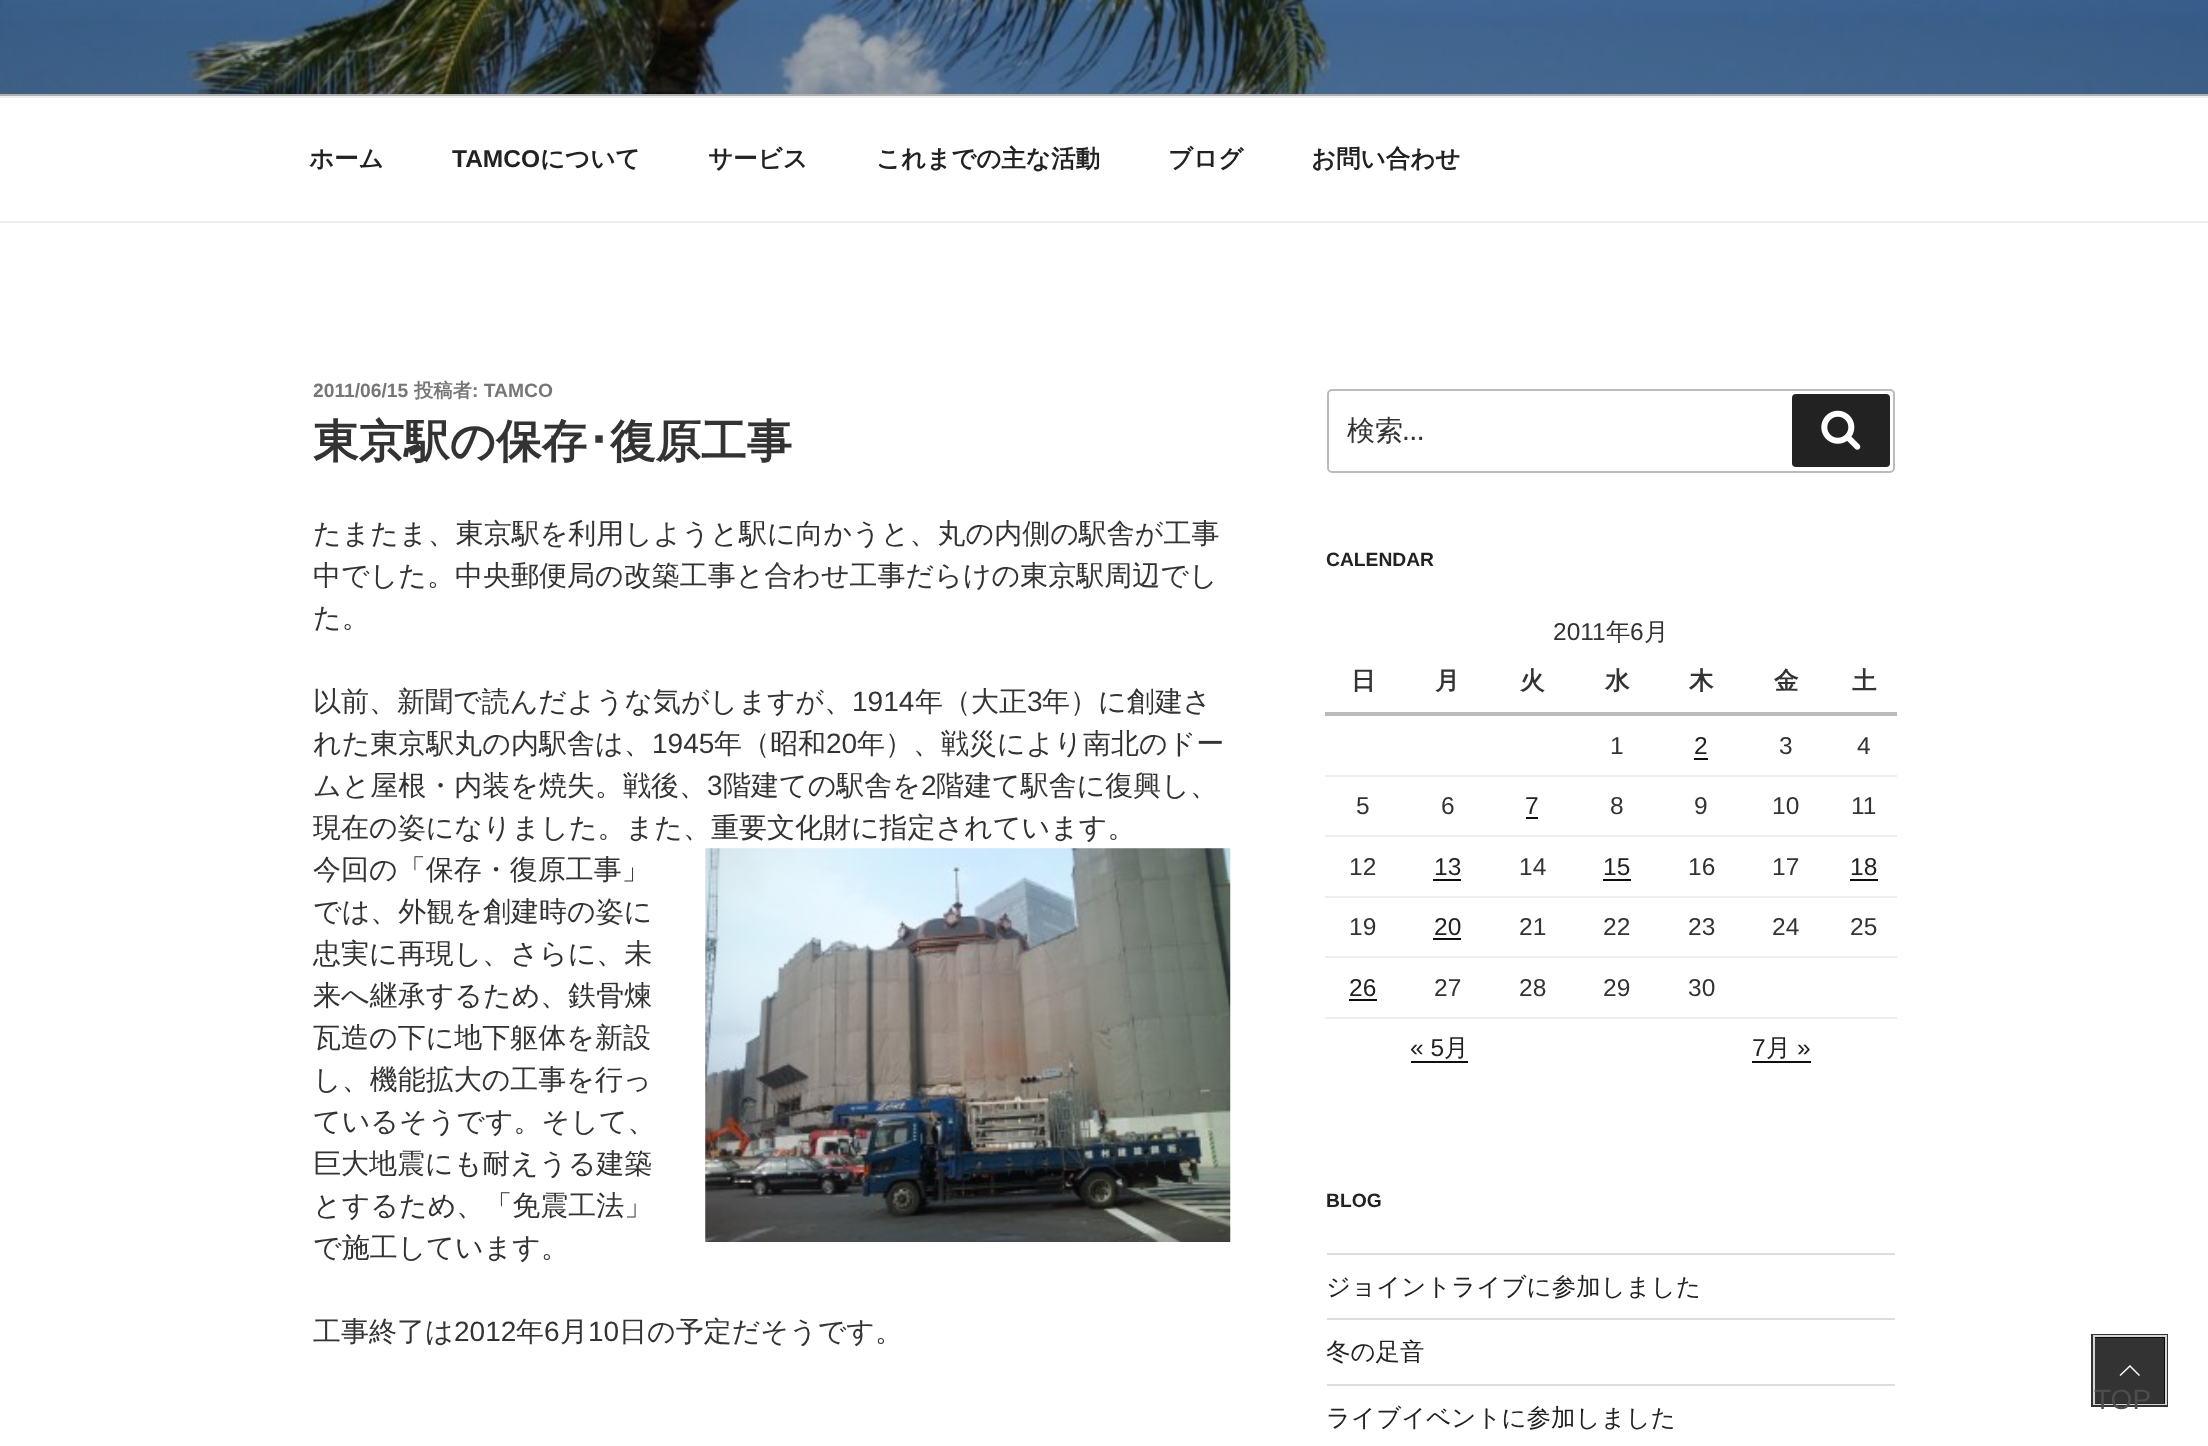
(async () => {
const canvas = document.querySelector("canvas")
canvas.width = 2208
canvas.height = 1446
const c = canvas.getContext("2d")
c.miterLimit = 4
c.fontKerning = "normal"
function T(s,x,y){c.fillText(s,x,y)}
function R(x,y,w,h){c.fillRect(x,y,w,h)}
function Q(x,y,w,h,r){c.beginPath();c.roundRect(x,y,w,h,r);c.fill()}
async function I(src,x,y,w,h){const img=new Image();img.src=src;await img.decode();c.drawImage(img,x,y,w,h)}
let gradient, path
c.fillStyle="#fff"
R(0,0,2208,1446)
c.fillStyle="#fafafa"
R(0,94,2208,2)
await I("1.png",0,0,2208,94)
gradient = c.createLinearGradient(1104,-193,1104,96)
gradient.addColorStop(0,"#00000000")
gradient.addColorStop(.75,"#0000004d")
gradient.addColorStop(1,"#0000004d")
c.fillStyle = gradient
R(0,0,2208,96)
c.fillStyle="#eee"
R(0,96,2208,2)
R(0,221,2208,2)
c.font="bold 24.5px WenQuanYi Zen Hei"
c.fillStyle="#222"
T("ホーム",309,167)
c.font="bold 24.5px Liberation Sans"
T("TAMCO",452,167)
c.font="bold 24.5px WenQuanYi Zen Hei"
T("について",540,167)
T("サービス",708,167)
T("これまでの主な活動",876,167)
T("ブログ",1168,167)
T("お問い合わせ",1311,167)
c.font="bold 19.25px Liberation Sans"
c.fillStyle="#767676"
T("2011/06/15",313,397)
c.font="bold 19.25px WenQuanYi Zen Hei"
T("投稿者",414,397)
c.font="bold 19.25px Liberation Sans"
T(": TAMCO",472,397)
c.font="bold 45.5px WenQuanYi Zen Hei"
c.fillStyle="#333"
T("東京駅の保存",313,457)
c.font="bold 45.5px IPAPGothic"
T("･",587,457)
c.font="bold 45.5px WenQuanYi Zen Hei"
T("復原工事",610,457)
c.font="500 28px WenQuanYi Zen Hei"
T("たまたま、東京駅を利用しようと駅に向かうと、丸の内側の駅舎が工事",313,543)
T("中でした。中央郵便局の改築工事と合わせ工事だらけの東京駅周辺でし",313,585)
T("た。",313,627)
T("以前、新聞で読んだような気がしますが、",313,711)
c.font="28px Liberation Sans"
T("1914",852,711)
c.font="500 28px WenQuanYi Zen Hei"
T("年（大正",915,711)
c.font="28px Liberation Sans"
T("3",1027,711)
c.font="500 28px WenQuanYi Zen Hei"
T("年）に創建さ",1042,711)
T("れた東京駅丸の内駅舎は、",313,753)
c.font="28px Liberation Sans"
T("1945",652,753)
c.font="500 28px WenQuanYi Zen Hei"
T("年（昭和",714,753)
c.font="28px Liberation Sans"
T("20",826,753)
c.font="500 28px WenQuanYi Zen Hei"
T("年）、戦災により南北のドー",857,753)
T("ムと屋根・内装を焼失。戦後、",313,795)
c.font="28px Liberation Sans"
T("3",707,795)
c.font="500 28px WenQuanYi Zen Hei"
T("階建ての駅舎を",723,795)
c.font="28px Liberation Sans"
T("2",921,795)
c.font="500 28px WenQuanYi Zen Hei"
T("階建て駅舎に復興し、",936,795)
T("現在の姿になりました。また、重要文化財に指定されています。",313,837)
T("今回の「保存・復原工事」",313,879)
await I("2.png",705,848,526,394)
T("では、外観を創建時の姿に",313,921)
T("忠実に再現し、さらに、未",313,963)
T("来へ継承するため、鉄骨煉",313,1005)
T("瓦造の下に地下躯体を新設",313,1047)
T("し、機能拡大の工事を行っ",313,1089)
T("ているそうです。そして、",313,1131)
T("巨大地震にも耐えうる建築",313,1173)
T("とするため、「免震工法」",313,1215)
T("で施工しています。",313,1257)
T("工事終了は",313,1341)
c.font="28px Liberation Sans"
T("2012",454,1341)
c.font="500 28px WenQuanYi Zen Hei"
T("年",516,1341)
c.font="28px Liberation Sans"
T("6",544,1341)
c.font="500 28px WenQuanYi Zen Hei"
T("月",560,1341)
c.font="28px Liberation Sans"
T("10",588,1341)
c.font="500 28px WenQuanYi Zen Hei"
T("日の予定だそうです。",619,1341)
c.beginPath()
c.roundRect(1328,390,566,82,4)
c.strokeStyle="#bbb"
c.lineWidth=2
c.stroke()
T("検索",1347,440)
c.font="28px Libre Franklin"
T("…",1403,440)
c.fillStyle="#222"
Q(1792,394,98,73,4)
await I("3.png",1821,410,40,40)
c.font="bold 19.25px Liberation Sans"
T("CALENDAR",1326,566)
c.font="24.5px Liberation Sans"
c.fillStyle="#333"
T("2011",1553,640)
c.font="500 24.5px WenQuanYi Zen Hei"
T("年",1606,640)
c.font="24.5px Liberation Sans"
T("6",1630,640)
c.font="500 24.5px WenQuanYi Zen Hei"
T("月",1644,640)
c.font="bold 24.5px WenQuanYi Zen Hei"
T("日",1351,689)
T("月",1435,689)
T("火",1520,689)
T("水",1605,689)
T("木",1689,689)
T("金",1774,689)
c.fillStyle="#bbb"
R(1325,712,572,4)
c.fillStyle="#333"
T("土",1852,689)
c.fillStyle="#eee"
R(1325,775,572,2)
c.font="24.5px Liberation Sans"
c.fillStyle="#333"
T("1",1610,754)
c.fillStyle="#222"
T("2",1694,754)
c.fillStyle="#0f0f0f"
R(1694,758,14,2)
c.fillStyle="#333"
T("3",1779,754)
T("4",1857,754)
c.fillStyle="#eee"
R(1325,835,572,2)
c.fillStyle="#333"
T("5",1356,814)
T("6",1441,814)
c.fillStyle="#222"
T("7",1525,814)
c.fillStyle="#0f0f0f"
R(1526,817,12,2)
c.fillStyle="#333"
T("8",1610,814)
T("9",1694,814)
T("10",1772,814)
T("11",1851,814)
c.fillStyle="#eee"
R(1325,896,572,2)
c.fillStyle="#333"
T("12",1349,875)
c.fillStyle="#222"
T("13",1434,875)
c.fillStyle="#0f0f0f"
R(1433,879,28,2)
c.fillStyle="#333"
T("14",1519,875)
c.fillStyle="#222"
T("15",1603,875)
c.fillStyle="#0f0f0f"
R(1603,879,28,2)
c.fillStyle="#333"
T("16",1688,875)
T("17",1772,875)
c.fillStyle="#222"
T("18",1850,875)
c.fillStyle="#0f0f0f"
R(1850,879,28,2)
c.fillStyle="#eee"
R(1325,956,572,2)
c.fillStyle="#333"
T("19",1349,935)
c.fillStyle="#222"
T("20",1434,935)
c.fillStyle="#0f0f0f"
R(1433,938,28,2)
c.fillStyle="#333"
T("21",1519,935)
T("22",1603,935)
T("23",1688,935)
T("24",1772,935)
T("25",1850,935)
c.fillStyle="#eee"
R(1325,1017,572,2)
c.fillStyle="#222"
T("26",1349,996)
c.fillStyle="#0f0f0f"
R(1349,999,28,2)
c.fillStyle="#333"
T("27",1434,996)
T("28",1519,996)
T("29",1603,996)
T("30",1688,996)
c.fillStyle="#222"
T("« 5",1410,1056)
c.font="500 24.5px WenQuanYi Zen Hei"
T("月",1444,1056)
c.fillStyle="#0f0f0f"
R(1411,1061,57,2)
c.font="24.5px Liberation Sans"
c.fillStyle="#222"
T("7",1752,1056)
c.font="500 24.5px WenQuanYi Zen Hei"
T("月",1766,1056)
c.font="24.5px Liberation Sans"
T("»",1797,1056)
c.fillStyle="#0f0f0f"
R(1752,1061,59,2)
c.font="bold 19.25px Liberation Sans"
c.fillStyle="#222"
T("BLOG",1326,1207)
c.fillStyle="#ddd"
R(1327,1253,568,2)
R(1327,1318,568,2)
c.font="500 24.5px WenQuanYi Zen Hei"
c.fillStyle="#222"
T("ジョイントライブに参加しました",1326,1295)
c.fillStyle="#ddd"
R(1327,1384,568,2)
c.fillStyle="#222"
T("冬の足音",1326,1360)
T("ライブイベントに参加しました",1326,1426)
c.strokeStyle="#333"
c.lineWidth=4
c.strokeRect(2093,1336,73,69)
c.strokeStyle="#d6d6d6"
c.lineWidth=2
c.strokeRect(2094,1336,72,68)
c.fillStyle="#000000cc"
R(2095,1337,70,67)
c.fillStyle="#fff"
path = new Path2D("M2140 1375l-1 1l-9-9l-9.5 9l-1-1l10.5-10z")
c.fill(path)
c.font="28px Liberation Sans"
c.fillStyle="#4d4d4d"
T("TOP",2094,1409)
})()
